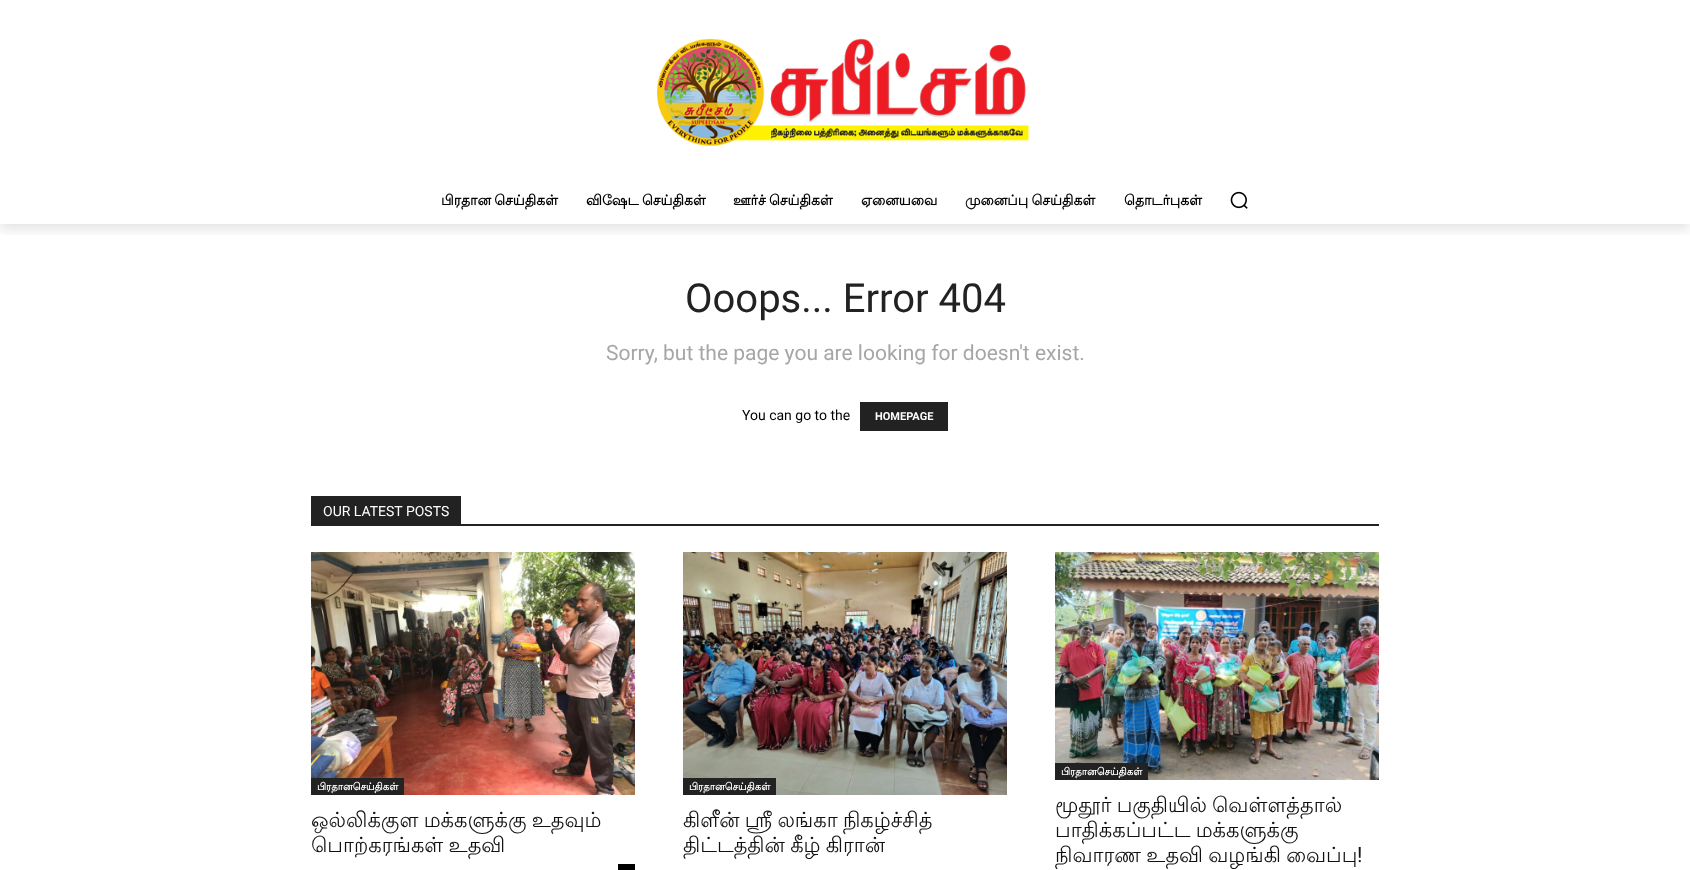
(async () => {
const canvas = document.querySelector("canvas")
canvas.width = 1690
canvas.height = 870
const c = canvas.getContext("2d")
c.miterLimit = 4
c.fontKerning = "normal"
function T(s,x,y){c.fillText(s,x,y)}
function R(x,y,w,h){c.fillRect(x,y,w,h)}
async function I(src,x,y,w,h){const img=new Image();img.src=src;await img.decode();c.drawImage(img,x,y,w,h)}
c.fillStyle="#fff"
R(0,0,1690,870)
await I("1.png",657,38,372,108)
c.save()
c.beginPath()
c.rect(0,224,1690,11)
c.clip()
c.fillStyle="#0000001a"
c.filter="blur(6px)"
c.beginPath()
c.rect(0,6,1690,224)
c.fill()
c.filter="none"
c.restore()
c.wordSpacing="-1px"
c.font="bold 14px Lohit Tamil"
c.fillStyle="#000"
T("பிரதான செய்திகள்",441,205)
T("விஷேட செய்திகள்",586,205)
T("ஊர்ச் செய்திகள்",733,205)
c.wordSpacing="0px"
T("ஏனையவை",861,205)
c.wordSpacing="-1px"
T("முனைப்பு செய்திகள்",965,205)
c.wordSpacing="0px"
T("தொடர்புகள்",1124,205)
await I("2.png",1230,191,18,18)
c.font="40px Roboto"
c.fillStyle="#222"
T("Ooops... Error 404",685,312)
c.font="21px Roboto"
c.fillStyle="#a6a6a6"
T("Sorry, but the page you are looking for doesn't exist.",606,360)
c.font="14px Roboto"
c.fillStyle="#000"
T("You can go to the",742,420)
c.fillStyle="#222"
R(860,402,88,29)
c.font="bold 11px Roboto"
c.fillStyle="#fff"
T("HOMEPAGE",875,420)
c.fillStyle="#222"
R(311,524,1068,2)
R(311,496,150,28)
c.font="14px Roboto"
c.fillStyle="#fff"
T("OUR LATEST POSTS",323,516)
await I("3.png",311,552,324,243)
c.fillStyle="#222"
R(311,778,93,17)
c.font="bold 10px Lohit Tamil"
c.fillStyle="#fff"
T("பிரதானசெய்திகள்",317,790)
c.wordSpacing="-1px"
c.font="21px Lohit Tamil"
c.fillStyle="#111"
T("ஒல்லிக்குள மக்களுக்கு உதவும்",311,827)
T("பொற்கரங்கள் உதவி",311,852)
c.fillStyle="#000"
R(618,864,17,6)
await I("4.png",683,552,324,243)
c.fillStyle="#222"
R(683,778,93,17)
c.wordSpacing="0px"
c.font="bold 10px Lohit Tamil"
c.fillStyle="#fff"
T("பிரதானசெய்திகள்",689,790)
c.wordSpacing="-1px"
c.font="21px Lohit Tamil"
c.fillStyle="#111"
T("கிளீன் ஸ்ரீ லங்கா நிகழ்ச்சித்",683,827)
T("திட்டத்தின் கீழ் கிரான்",683,852)
await I("5.png",1055,552,324,228)
c.fillStyle="#222"
R(1055,763,93,17)
c.wordSpacing="0px"
c.font="bold 10px Lohit Tamil"
c.fillStyle="#fff"
T("பிரதானசெய்திகள்",1061,775)
c.wordSpacing="-1px"
c.font="21px Lohit Tamil"
c.fillStyle="#111"
T("மூதூர் பகுதியில்",1055,812)
c.wordSpacing="0px"
T("வெள்ளத்தால்",1212,812)
c.wordSpacing="-1px"
T("பாதிக்கப்பட்ட மக்களுக்கு",1055,837)
T("நிவாரண உதவி வழங்கி வைப்பு",1055,862)
c.wordSpacing="0px"
c.font="21px Roboto"
T("!",1357,862)
})()
